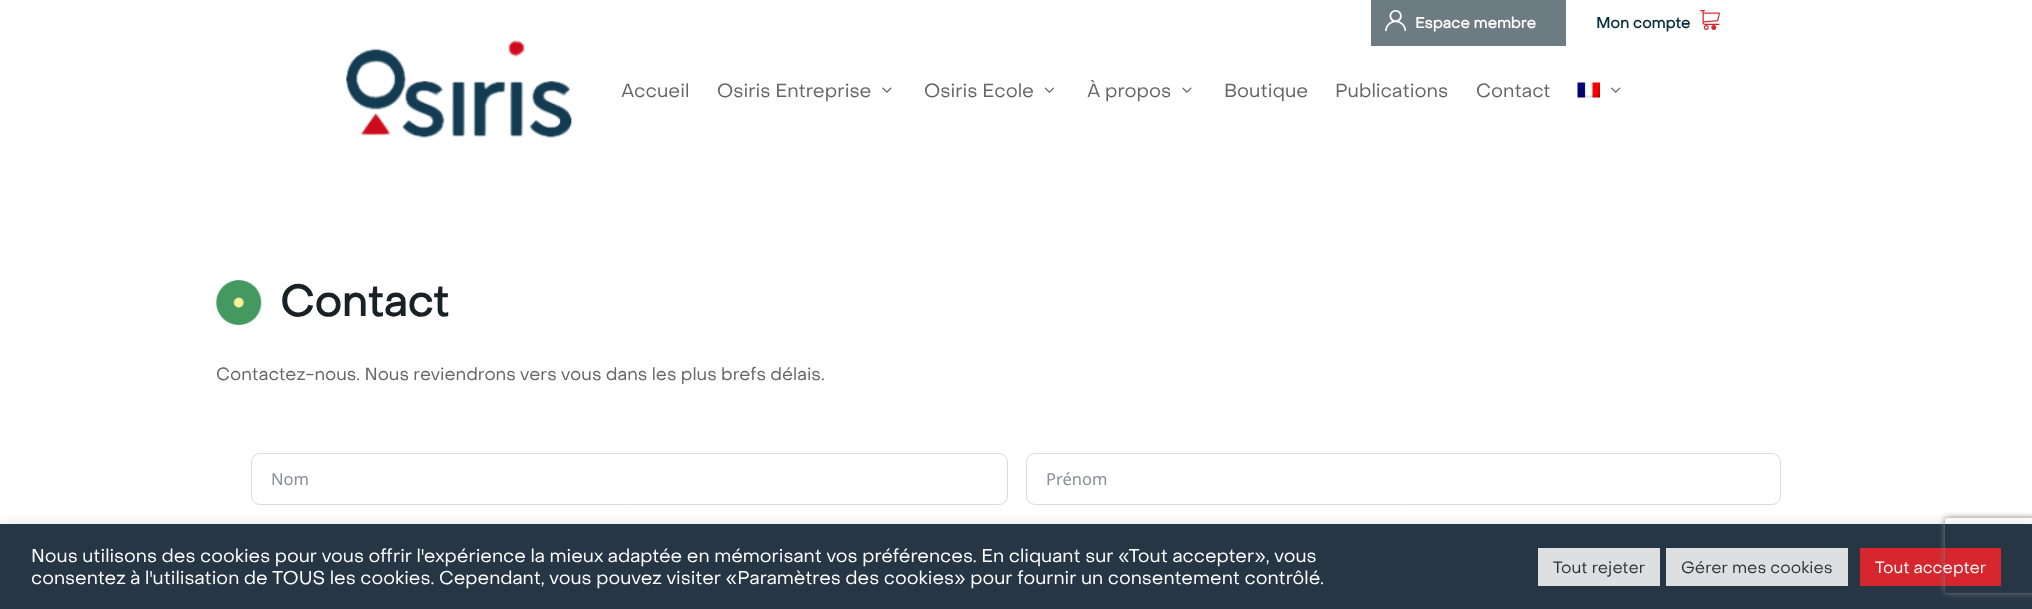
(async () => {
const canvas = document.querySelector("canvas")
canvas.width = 2032
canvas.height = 609
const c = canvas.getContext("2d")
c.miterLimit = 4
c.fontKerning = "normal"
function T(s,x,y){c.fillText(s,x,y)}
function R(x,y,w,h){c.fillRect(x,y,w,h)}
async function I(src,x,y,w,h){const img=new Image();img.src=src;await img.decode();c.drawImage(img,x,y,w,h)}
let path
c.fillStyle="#fff"
R(0,0,2032,609)
c.fillStyle="#6d7b83"
R(1371,0,195,46)
await I("1.png",1385,10,21,21)
c.font="bold 15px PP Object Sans"
c.fillStyle="#fff"
T("Espace membre",1415,28)
await I("2.png",1700,10,20,20)
c.fillStyle="#052e40"
T("Mon compte",1596,28)
await I("3.png",346,40,226,98)
c.font="18.75px PP Object Sans"
c.fillStyle="#666"
T("Accueil",621,97)
T("Osiris Entreprise",717,97)
await I("4.png",882,87,10,6)
T("Osiris Ecole",924,97)
await I("5.png",1044,87,10,6)
T("À propos",1087,97)
await I("4.png",1182,87,10,6)
T("Boutique",1224,97)
T("Publications",1335,97)
T("Contact",1476,97)
await I("6.png",1577,82,23,16)
await I("7.png",1611,87,10,6)
await I("8.png",216,280,46,45)
c.font="bold 42.5px PP Object Sans"
c.fillStyle="#182226"
T("Contact",280,316)
c.font="17.5px PP Object Sans"
c.fillStyle="#666"
T("Contactez-nous. Nous reviendrons vers vous dans les plus brefs délais.",216,380)
c.beginPath()
c.roundRect(251.5,453.5,756,51,8.5)
c.strokeStyle="#dadbdd"
c.stroke()
c.font="16.5px Noto Sans"
c.fillStyle="#868e96"
T("Nom",271,485)
c.beginPath()
c.roundRect(1026.5,453.5,754,51,8.5)
c.stroke()
T("Prénom",1046,485)
c.fillStyle="#acabab4d"
c.filter="blur(6px)"
c.beginPath()
c.rect(0,523,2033,86)
c.fill()
c.filter="none"
c.fillStyle="#263645"
R(0,524,2032,85)
c.fillStyle="#d8262e"
R(1860,548,141,38)
c.save()
path = new Path2D("M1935 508h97v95h-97zm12.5 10h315c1.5 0 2.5 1 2.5 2.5v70c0 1.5-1 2.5-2.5 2.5h-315c-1.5 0-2.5-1-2.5-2.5v-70c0-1.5 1-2.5 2.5-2.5z")
c.clip(path,"evenodd")
c.fillStyle="#808080"
c.filter="blur(3px)"
c.beginPath()
c.roundRect(1945,518,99,75,2.5)
c.fill()
c.filter="none"
c.restore()
c.font="18.33px PP Object Sans"
c.fillStyle="#fff"
T("Nous utilisons des cookies pour vous offrir l'expérience la mieux adaptée en mémorisant vos préférences. En cliquant sur «Tout accepter», vous",31,562)
T("consentez à l'utilisation de TOUS les cookies. Cependant, vous pouvez visiter «Paramètres des cookies» pour fournir un consentement contrôlé.",31,584)
c.fillStyle="#dedfe0"
R(1538,548,122,38)
c.font="16.25px PP Object Sans"
c.fillStyle="#333"
T("Tout rejeter",1553,573)
c.fillStyle="#dedfe0"
R(1666,548,182,38)
c.fillStyle="#333"
T("Gérer mes cookies",1681,573)
c.fillStyle="#fff"
T("Tout accepter",1875,573)
})()
